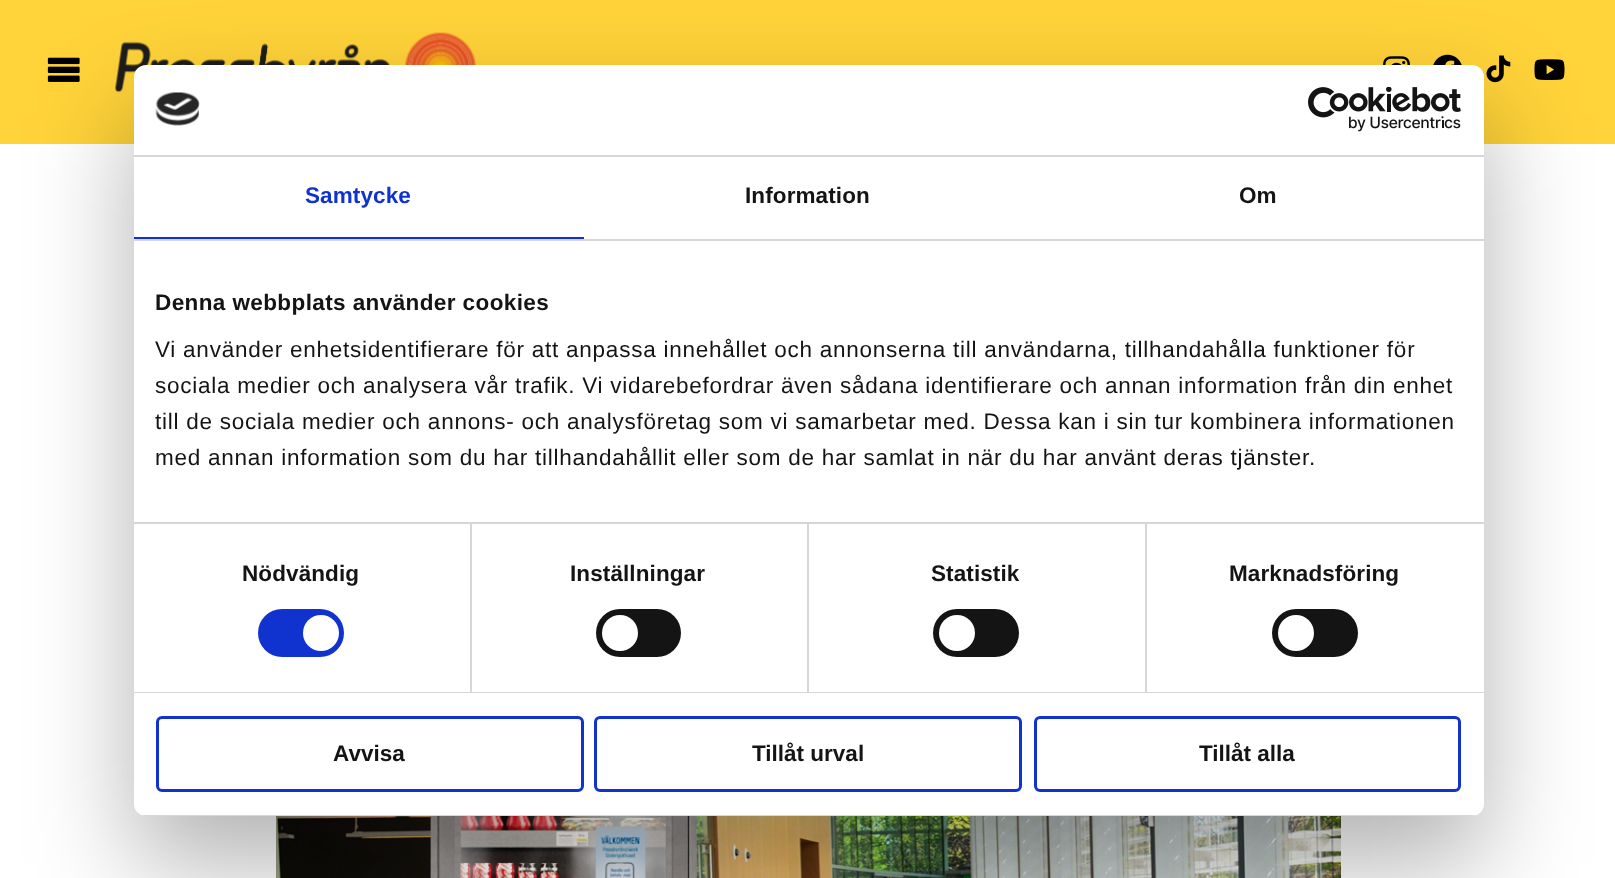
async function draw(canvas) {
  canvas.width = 1615
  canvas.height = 878
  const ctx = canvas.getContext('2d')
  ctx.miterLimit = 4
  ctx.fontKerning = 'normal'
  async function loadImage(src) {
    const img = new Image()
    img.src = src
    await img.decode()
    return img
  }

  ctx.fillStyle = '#ffd339'
  ctx.fillRect(0, 0, 1615, 878)
  ctx.drawImage(await loadImage('image0.png'), 47, 57, 33, 25)
  ctx.drawImage(await loadImage('image1.png'), 115, 32, 361, 61)
  ctx.drawImage(await loadImage('image2.png'), 1383, 56, 27, 9)
  ctx.drawImage(await loadImage('image3.png'), 1433, 54, 29, 11)
  ctx.drawImage(await loadImage('image4.png'), 1486, 55, 25, 28)
  ctx.drawImage(await loadImage('image5.png'), 1534, 59, 31, 21)
  ctx.fillStyle = '#fff'
  ctx.fillRect(0, 144, 1615, 734)
  ctx.drawImage(await loadImage('image6.png'), 276, 816, 1065, 62)
  ctx.fillStyle = '#0000004d'
  ctx.filter = 'blur(51px)'
  ctx.beginPath()
  ctx.roundRect(134, 113, 1350, 751, 12)
  ctx.fill()
  ctx.filter = 'none'
  ctx.fillStyle = '#fff'
  ctx.beginPath()
  ctx.roundRect(134, 65, 1350, 751, 12)
  ctx.fill()
  ctx.fillStyle = '#d6d6d6'
  ctx.fillRect(134, 155, 1350, 2)
  ctx.drawImage(await loadImage('image7.png'), 155, 92, 45, 34)
  ctx.drawImage(await loadImage('image8.png'), 1308, 87, 153, 45)
  ctx.fillRect(134, 239, 1350, 2)
  ctx.fillStyle = '#1032cf'
  ctx.fillRect(134, 237, 450, 2)
  ctx.letterSpacing = '0.1px'
  ctx.font = 'bold 22.5px Liberation Sans'
  ctx.fillText('Samtycke', 305, 203)
  ctx.fillStyle = '#141414'
  ctx.fillText('Information', 745, 203)
  ctx.fillText('Om', 1239, 203)
  ctx.fillStyle = '#d6d6d6'
  ctx.fillRect(134, 522, 1350, 2)
  ctx.letterSpacing = '0.4px'
  ctx.fillStyle = '#141414'
  ctx.fillText('Denna webbplats använder cookies', 155, 310)
  ctx.letterSpacing = '0.75px'
  ctx.font = '22.5px Liberation Sans'
  ctx.fillText('Vi använder enhetsidentifierare för att anpassa innehållet och annonserna till användarna, tillhandahålla funktioner för', 155, 357)
  ctx.fillText('sociala medier och analysera vår trafik. Vi vidarebefordrar även sådana identifierare och annan information från din enhet', 155, 393)
  ctx.fillText('till de sociala medier och annons- och analysföretag som vi samarbetar med. Dessa kan i sin tur kombinera informationen', 155, 429)
  ctx.fillText('med annan information som du har tillhandahållit eller som de har samlat in när du har använt deras tjänster.', 155, 465)
  ctx.fillStyle = '#d6d6d6'
  ctx.fillRect(134, 692, 1350, 1)
  ctx.fillRect(470, 524, 2, 168)
  ctx.letterSpacing = '0.1px'
  ctx.font = 'bold 22.5px Liberation Sans'
  ctx.fillStyle = '#141414'
  ctx.fillText('Nödvändig', 242, 581)
  ctx.fillStyle = '#1032cf'
  ctx.beginPath()
  ctx.roundRect(258, 609, 86, 48, 24)
  ctx.fill()
  ctx.fillStyle = '#fff'
  ctx.beginPath()
  ctx.arc(321, 633, 18, 0, 2 * Math.PI)
  ctx.fill()
  ctx.fillStyle = '#d6d6d6'
  ctx.fillRect(807, 524, 2, 168)
  ctx.fillStyle = '#141414'
  ctx.fillText('Inställningar', 570, 581)
  ctx.beginPath()
  ctx.roundRect(596, 609, 85, 48, 24)
  ctx.fill()
  ctx.fillStyle = '#fff'
  ctx.beginPath()
  ctx.arc(620, 633, 18, 0, 2 * Math.PI)
  ctx.fill()
  ctx.fillStyle = '#d6d6d6'
  ctx.fillRect(1145, 524, 2, 168)
  ctx.fillStyle = '#141414'
  ctx.fillText('Statistik', 931, 581)
  ctx.beginPath()
  ctx.roundRect(933, 609, 86, 48, 24)
  ctx.fill()
  ctx.fillStyle = '#fff'
  ctx.beginPath()
  ctx.arc(957, 633, 18, 0, 2 * Math.PI)
  ctx.fill()
  ctx.fillStyle = '#141414'
  ctx.fillText('Marknadsföring', 1229, 581)
  ctx.beginPath()
  ctx.roundRect(1272, 609, 86, 48, 24)
  ctx.fill()
  ctx.fillStyle = '#fff'
  ctx.beginPath()
  ctx.arc(1296, 633, 18, 0, 2 * Math.PI)
  ctx.fill()
  ctx.save()
  ctx.beginPath()
  ctx.roundRect(134, 65, 1350, 751, 12)
  ctx.clip()
  ctx.fillStyle = '#d6d6d6'
  ctx.fillRect(134, 815, 1350, 1)
  ctx.restore()
  ctx.beginPath()
  ctx.roundRect(157.5, 717.5, 425, 73, 4.5)
  ctx.strokeStyle = '#1032cf'
  ctx.lineWidth = 3
  ctx.stroke()
  ctx.letterSpacing = '0px'
  ctx.fillStyle = '#141414'
  ctx.fillText('Avvisa', 333, 761)
  ctx.beginPath()
  ctx.roundRect(595.5, 717.5, 425, 73, 4.5)
  ctx.stroke()
  ctx.fillText('Tillåt urval', 752, 761)
  ctx.beginPath()
  ctx.roundRect(1035.5, 717.5, 424, 73, 4.5)
  ctx.stroke()
  ctx.fillText('Tillåt alla', 1199, 761)
}

draw(document.querySelector('canvas'))
